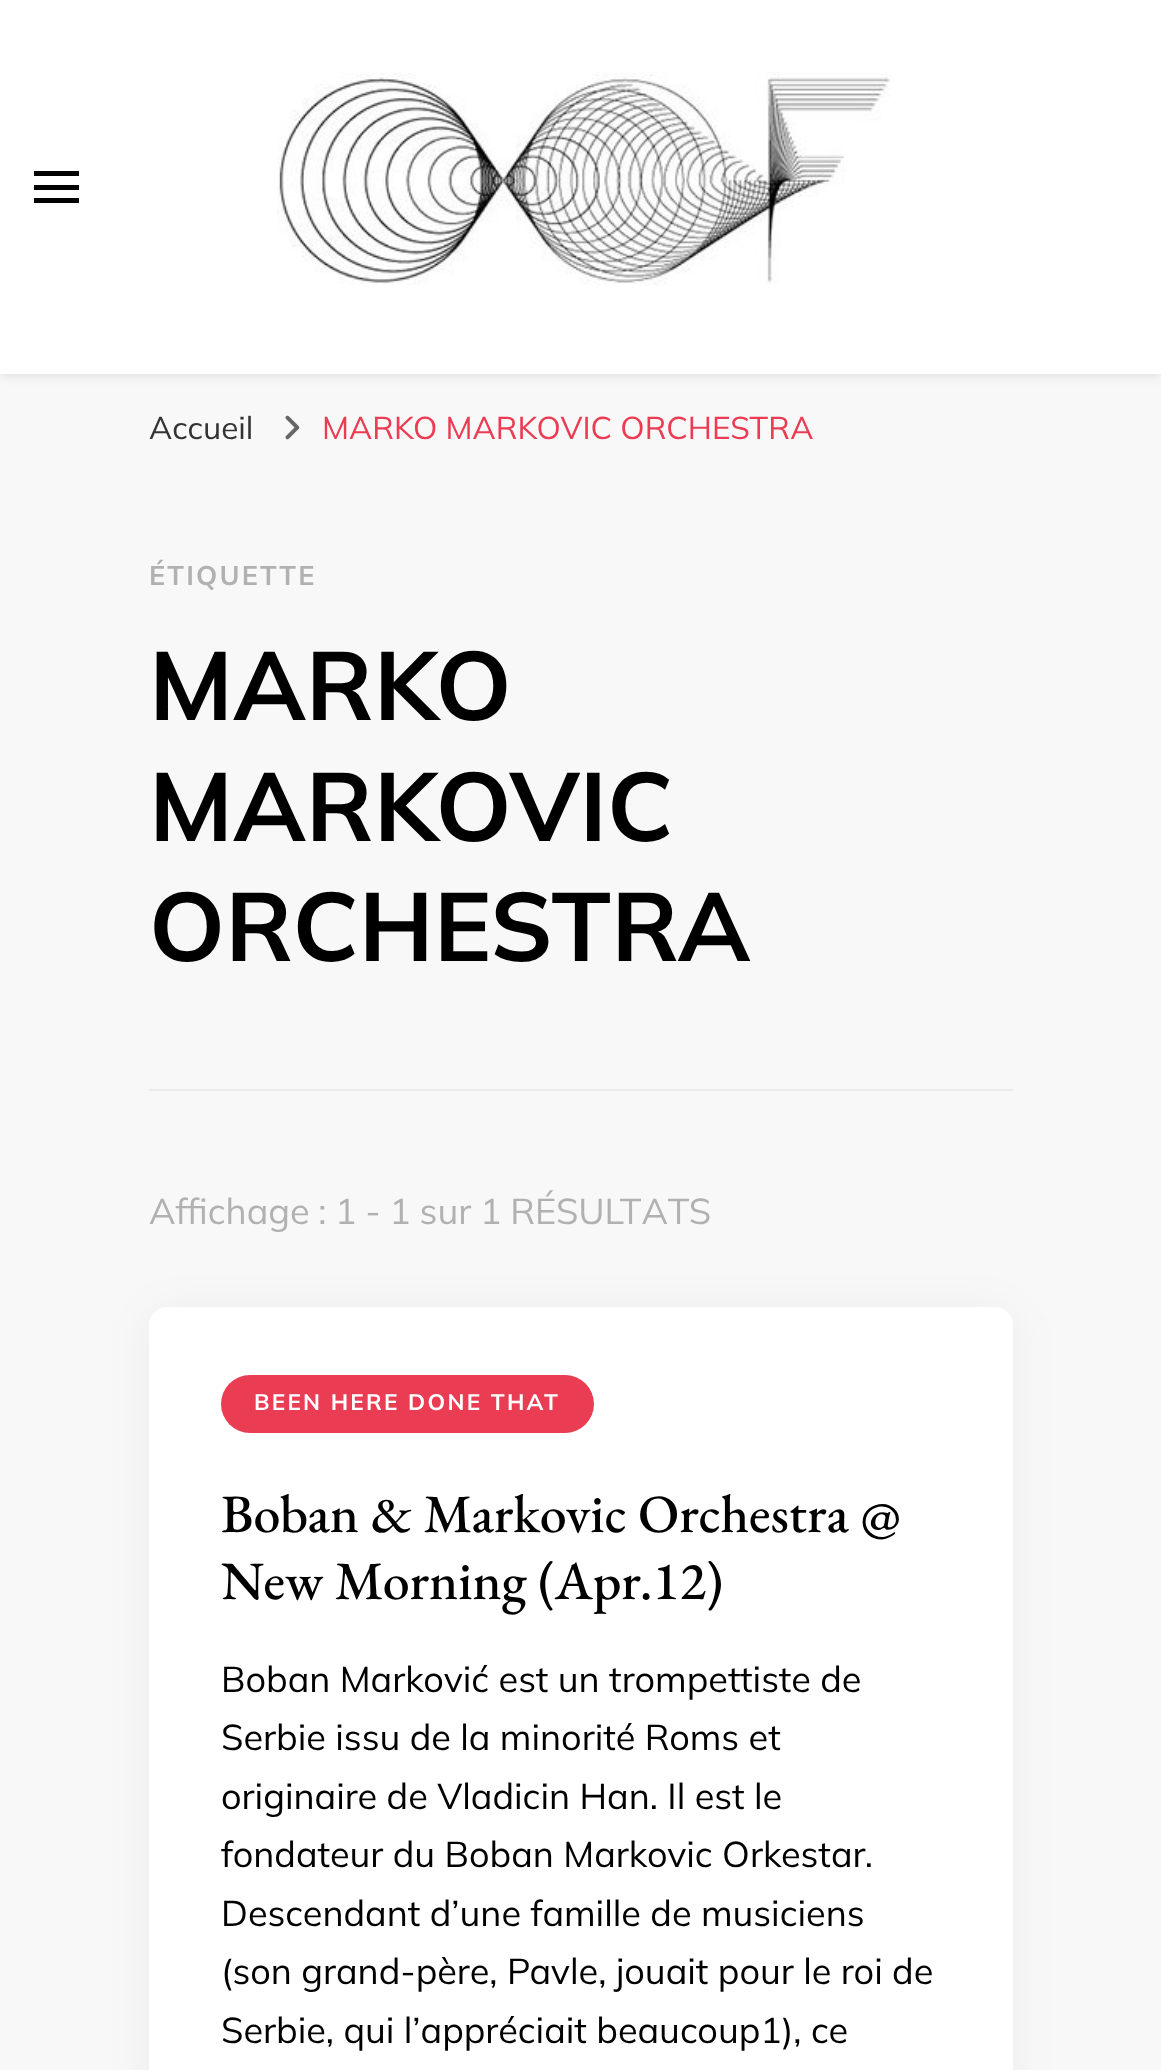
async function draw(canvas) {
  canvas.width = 1161
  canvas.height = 2070
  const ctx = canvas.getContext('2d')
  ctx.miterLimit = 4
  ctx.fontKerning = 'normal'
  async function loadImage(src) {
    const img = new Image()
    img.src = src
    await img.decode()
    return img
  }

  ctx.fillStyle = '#f8f8f8'
  ctx.fillRect(0, 0, 1161, 2070)
  ctx.fillStyle = '#0000001a'
  ctx.filter = 'blur(5.5px)'
  ctx.beginPath()
  ctx.rect(0, 2, 1161, 374)
  ctx.fill()
  ctx.filter = 'none'
  ctx.fillStyle = '#fff'
  ctx.fillRect(0, 0, 1161, 374)
  ctx.fillStyle = '#000'
  ctx.fillRect(34, 171, 45, 5)
  ctx.fillRect(34, 185, 45, 5)
  ctx.fillRect(34, 198, 45, 5)
  ctx.drawImage(await loadImage('image0.png'), 277, 72, 614, 214)
  ctx.font = '31.5px Mulish'
  ctx.fillStyle = '#333'
  ctx.fillText('Accueil', 149, 439)
  ctx.drawImage(await loadImage('image1.png'), 285, 415, 15, 25)
  ctx.fillStyle = '#ea3c53'
  ctx.fillText('MARKO MARKOVIC ORCHESTRA', 322, 439)
  ctx.fillStyle = '#ebebeb'
  ctx.fillRect(149, 1089, 864, 2)
  ctx.letterSpacing = '2.25px'
  ctx.font = 'bold 27px Mulish'
  ctx.fillStyle = '#b1b1b2'
  ctx.fillText('ÉTIQUETTE', 149, 585)
  ctx.letterSpacing = '0px'
  ctx.font = 'bold 96.75px Mulish'
  ctx.fillStyle = '#000'
  ctx.fillText('MARKO', 149, 720)
  ctx.fillText('MARKOVIC', 149, 841)
  ctx.fillText('ORCHESTRA', 149, 961)
  ctx.wordSpacing = '-0.75px'
  ctx.font = '36px Mulish'
  ctx.fillStyle = '#b1b1b2'
  ctx.fillText('Affichage : 1 - 1 sur 1 RÉSULTATS', 149, 1224)
  ctx.fillStyle = '#0000000d'
  ctx.filter = 'blur(22.5px)'
  ctx.beginPath()
  ctx.roundRect(149, 1312, 864, 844, 18)
  ctx.fill()
  ctx.filter = 'none'
  ctx.fillStyle = '#fff'
  ctx.beginPath()
  ctx.roundRect(149, 1307, 864, 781, 18)
  ctx.fill()
  ctx.fillStyle = '#ea3c53'
  ctx.beginPath()
  ctx.roundRect(221, 1375, 373, 58, 29)
  ctx.fill()
  ctx.letterSpacing = '2.25px'
  ctx.wordSpacing = '0px'
  ctx.font = 'bold 22.5px Mulish'
  ctx.fillStyle = '#fff'
  ctx.fillText('BEEN HERE DONE THAT', 254, 1410)
  ctx.letterSpacing = '0px'
  ctx.font = '500 54px EB Garamond'
  ctx.fillStyle = '#000'
  ctx.fillText('Boban & Markovic Orchestra @', 221, 1532)
  ctx.fillText('New Morning (Apr.12)', 221, 1599)
  ctx.font = '36px Mulish'
  ctx.fillText('Boban Marković est un trompettiste de', 221, 1692)
  ctx.fillText('Serbie issu de la minorité Roms et', 221, 1750)
  ctx.fillText('originaire de Vladicin Han. Il est le', 221, 1809)
  ctx.fillText('fondateur du Boban Markovic Orkestar.', 221, 1867)
  ctx.fillText('Descendant d’une famille de musiciens', 221, 1926)
  ctx.fillText('(son grand-père, Pavle, jouait pour le roi de', 221, 1984)
  ctx.fillText('Serbie, qui l’appréciait beaucoup1), ce', 221, 2043)
}

draw(document.querySelector('canvas'))
